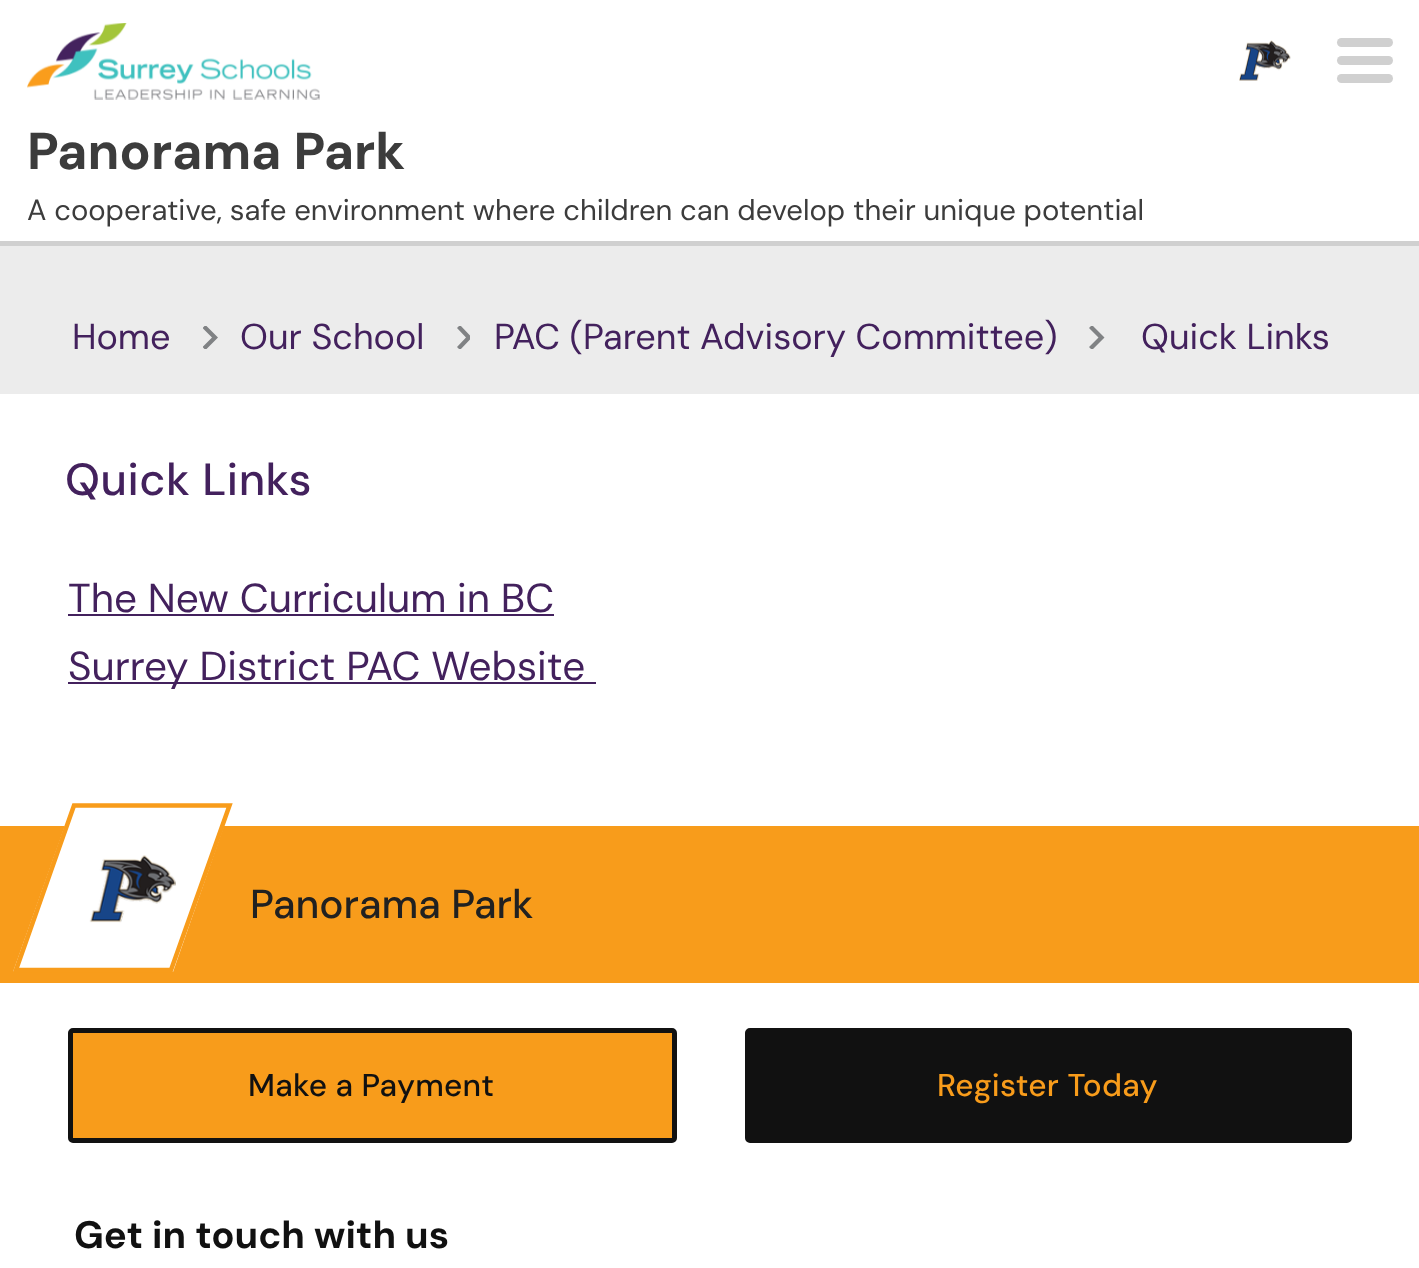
async function draw(canvas) {
  canvas.width = 1419
  canvas.height = 1268
  const ctx = canvas.getContext('2d')
  ctx.miterLimit = 4
  ctx.fontKerning = 'normal'
  async function loadImage(src) {
    const img = new Image()
    img.src = src
    await img.decode()
    return img
  }

  ctx.fillStyle = '#fff'
  ctx.fillRect(0, 0, 1419, 1268)
  ctx.drawImage(await loadImage('image0.png'), 27, 23, 293, 77)
  ctx.drawImage(await loadImage('image1.png'), 1239, 40, 52, 41)
  ctx.fillStyle = '#d0d0d0'
  ctx.beginPath()
  ctx.roundRect(1337, 38, 56, 9, 4.5)
  ctx.fill()
  ctx.beginPath()
  ctx.roundRect(1337, 56, 56, 9, 4.5)
  ctx.fill()
  ctx.beginPath()
  ctx.roundRect(1337, 74, 56, 9, 4.5)
  ctx.fill()
  ctx.font = 'bold 51.75px DM Sans'
  ctx.fillStyle = '#3c3c3c'
  ctx.fillText('Panorama Park', 27, 169)
  ctx.font = '29.25px DM Sans'
  ctx.fillText('A cooperative, safe environment where children can develop their unique potential', 27, 220)
  ctx.fillStyle = '#d0d0d0'
  ctx.fillRect(0, 241, 1419, 5)
  ctx.fillStyle = '#ececec'
  ctx.fillRect(0, 246, 1419, 148)
  ctx.font = '36px DM Sans'
  ctx.fillStyle = '#43215d'
  ctx.fillText('Home', 72, 349)
  ctx.save()
  ctx.beginPath()
  ctx.rect(203, 326, 15, 23)
  ctx.clip()
  ctx.fillStyle = '#808284'
  ctx.beginPath()
  ctx.moveTo(205.5, 325)
  ctx.lineTo(202.5, 328)
  ctx.lineTo(212, 337.5)
  ctx.lineTo(202.5, 347)
  ctx.lineTo(205.5, 350)
  ctx.lineTo(218, 337.5)
  ctx.closePath()
  ctx.fill()
  ctx.restore()
  ctx.fillText('Our School', 240, 349)
  ctx.save()
  ctx.beginPath()
  ctx.rect(457, 326, 13, 23)
  ctx.clip()
  ctx.fillStyle = '#808284'
  ctx.beginPath()
  ctx.moveTo(460, 325)
  ctx.lineTo(457, 328)
  ctx.lineTo(466, 337.5)
  ctx.lineTo(457, 347)
  ctx.lineTo(460, 350)
  ctx.lineTo(472, 337.5)
  ctx.closePath()
  ctx.fill()
  ctx.restore()
  ctx.fillText('PAC (Parent Advisory Committee)', 494, 349)
  ctx.save()
  ctx.beginPath()
  ctx.rect(1089, 326, 16, 23)
  ctx.clip()
  ctx.fillStyle = '#808284'
  ctx.beginPath()
  ctx.moveTo(1092, 325)
  ctx.lineTo(1089, 328)
  ctx.lineTo(1098.5, 337.5)
  ctx.lineTo(1089, 347)
  ctx.lineTo(1092, 350)
  ctx.lineTo(1104.5, 337.5)
  ctx.closePath()
  ctx.fill()
  ctx.restore()
  ctx.fillText('Quick Links', 1141, 349)
  ctx.letterSpacing = '0.5px'
  ctx.font = '500 45px DM Sans'
  ctx.fillText('Quick Links', 65, 495)
  ctx.letterSpacing = '0px'
  ctx.font = '40.5px DM Sans'
  ctx.fillText('The New Curriculum in BC', 68, 612)
  ctx.fillRect(68, 614, 486, 2)
  ctx.fillRect(68, 682, 528, 2)
  ctx.fillText('Surrey District PAC Website', 68, 680)
  ctx.fillStyle = '#f89c1b'
  ctx.fillRect(0, 826, 1419, 157)
  ctx.fillStyle = '#fff'
  ctx.beginPath()
  ctx.moveTo(73, 803)
  ctx.lineTo(232, 803)
  ctx.lineTo(173, 972)
  ctx.lineTo(13, 972)
  ctx.closePath()
  ctx.fill()
  ctx.beginPath()
  ctx.moveTo(74, 805.5)
  ctx.lineTo(229.5, 805.5)
  ctx.lineTo(171, 970)
  ctx.lineTo(16, 970)
  ctx.closePath()
  ctx.strokeStyle = '#f89c1b'
  ctx.lineWidth = 4.5
  ctx.stroke()
  ctx.drawImage(await loadImage('image2.png'), 89, 855, 87, 68)
  ctx.font = '500 40.5px DM Sans'
  ctx.fillStyle = '#212121'
  ctx.fillText('Panorama Park', 250, 918)
  ctx.fillStyle = '#f89c1b'
  ctx.beginPath()
  ctx.roundRect(70.5, 1030.5, 604, 110, 2.5)
  ctx.fill()
  ctx.strokeStyle = '#111'
  ctx.lineWidth = 5
  ctx.stroke()
  ctx.letterSpacing = '0.25px'
  ctx.font = '500 31.5px DM Sans'
  ctx.fillStyle = '#111'
  ctx.fillText('Make a Payment', 248, 1096)
  ctx.beginPath()
  ctx.roundRect(747.5, 1030.5, 602, 110, 2.5)
  ctx.fill()
  ctx.stroke()
  ctx.fillStyle = '#f89c1b'
  ctx.fillText('Register Today', 937, 1096)
  ctx.letterSpacing = '0px'
  ctx.font = 'bold 38.25px DM Sans'
  ctx.fillStyle = '#111'
  ctx.fillText('Get in touch with us', 74, 1248)
}

draw(document.querySelector('canvas'))
